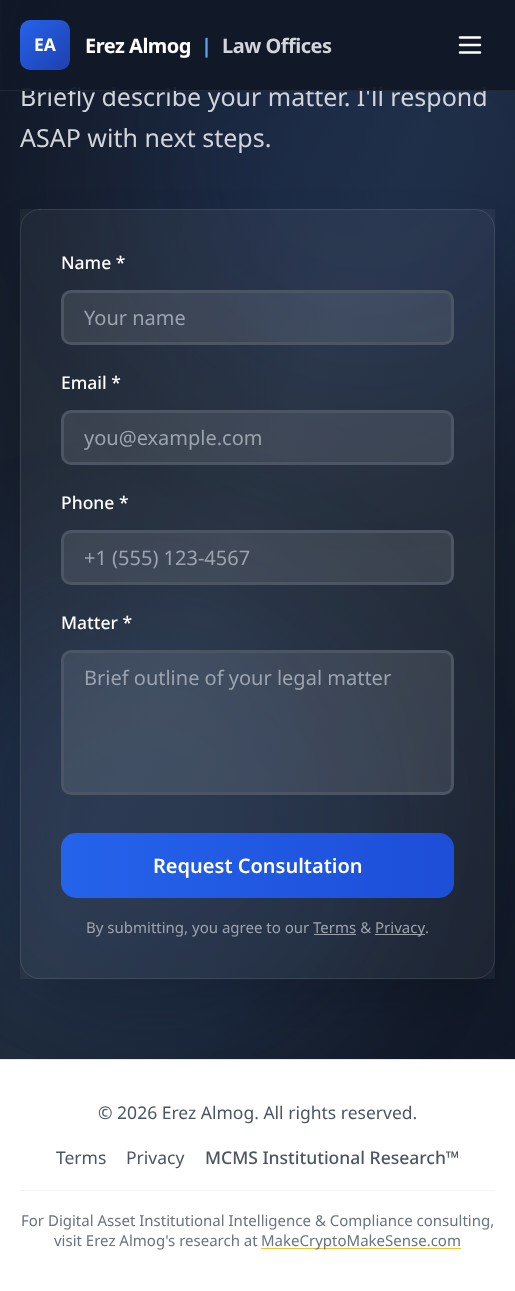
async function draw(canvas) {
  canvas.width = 515
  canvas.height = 1291
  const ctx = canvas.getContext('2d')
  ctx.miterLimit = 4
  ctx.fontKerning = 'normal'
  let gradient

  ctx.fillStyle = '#fff'
  ctx.fillRect(0, 0, 515, 1291)
  gradient = ctx.createLinearGradient(-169, 299, 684, 687)
  gradient.addColorStop(0, '#111827')
  gradient.addColorStop(0.5, '#1f2937')
  gradient.addColorStop(1, '#111827')
  ctx.fillStyle = gradient
  ctx.fillRect(0, 0, 515, 1059)
  ctx.fillStyle = '#2563eb1a'
  ctx.filter = 'blur(80px)'
  ctx.beginPath()
  ctx.roundRect(129, -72, 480, 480, 240)
  ctx.fill()
  ctx.filter = 'none'
  ctx.font = '25px Noto Sans'
  ctx.fillStyle = '#d1d5db'
  ctx.fillText('Briefly describe your matter. I\'ll respond', 20, 106)
  ctx.fillStyle = '#111827f2'
  ctx.fillRect(2, 0, 513, 90)
  ctx.fillStyle = '#1f2937'
  ctx.fillRect(0, 90, 515, 1)
  gradient = ctx.createLinearGradient(20, 20, 70, 70)
  gradient.addColorStop(0, '#2563eb')
  gradient.addColorStop(1, '#1e40af')
  ctx.fillStyle = gradient
  ctx.beginPath()
  ctx.roundRect(20, 20, 50, 50, 10)
  ctx.fill()
  ctx.font = 'bold 17.5px Noto Sans'
  ctx.fillStyle = '#fff'
  ctx.fillText('EA', 34, 51)
  ctx.letterSpacing = '-0.5px'
  ctx.font = 'bold 20px Noto Sans'
  ctx.fillText('Erez Almog', 85, 53)
  ctx.fillStyle = '#60a5fa'
  ctx.fillText('|', 201, 53)
  ctx.fillStyle = '#d1d5db'
  ctx.fillText('Law Offices', 222, 53)
  ctx.beginPath()
  ctx.moveTo(460, 37.5)
  ctx.lineTo(480, 37.5)
  ctx.moveTo(460, 45)
  ctx.lineTo(480, 45)
  ctx.moveTo(460, 52.5)
  ctx.lineTo(480, 52.5)
  ctx.strokeStyle = '#fff'
  ctx.lineWidth = 2.5
  ctx.lineCap = 'round'
  ctx.lineJoin = 'round'
  ctx.stroke()
  ctx.letterSpacing = '0px'
  ctx.font = '25px Noto Sans'
  ctx.fillText('ASAP with next steps.', 20, 147)
  ctx.fillStyle = '#e5e7eb'
  ctx.fillRect(0, 1059, 515, 1)
  ctx.save()
  ctx.beginPath()
  ctx.moveTo(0, 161)
  ctx.lineTo(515, 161)
  ctx.lineTo(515, 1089)
  ctx.lineTo(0, 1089)
  ctx.closePath()
  ctx.moveTo(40, 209)
  ctx.lineTo(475, 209)
  ctx.bezierCurveTo(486, 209, 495, 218, 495, 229)
  ctx.lineTo(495, 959)
  ctx.bezierCurveTo(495, 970, 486, 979, 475, 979)
  ctx.lineTo(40, 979)
  ctx.bezierCurveTo(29, 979, 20, 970, 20, 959)
  ctx.lineTo(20, 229)
  ctx.bezierCurveTo(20, 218, 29, 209, 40, 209)
  ctx.closePath()
  ctx.clip('evenodd')
  ctx.fillStyle = '#00000040'
  ctx.filter = 'blur(31px)'
  ctx.beginPath()
  ctx.roundRect(35, 255, 445, 740, 5)
  ctx.fill()
  ctx.filter = 'none'
  ctx.restore()
  ctx.fillStyle = '#f3f4f6'
  ctx.fillRect(20, 1190, 475, 1)
  ctx.fillStyle = '#f4c430'
  ctx.fillRect(261, 1248, 200, 1)
  ctx.save()
  ctx.beginPath()
  ctx.rect(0, 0, 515, 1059)
  ctx.clip()
  ctx.fillStyle = '#3b82f61a'
  ctx.filter = 'blur(80px)'
  ctx.beginPath()
  ctx.roundRect(-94, 579, 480, 480, 240)
  ctx.fill()
  ctx.filter = 'none'
  ctx.restore()
  ctx.fillStyle = '#ffffff0d'
  ctx.fillRect(20, 209, 475, 770)
  ctx.beginPath()
  ctx.roundRect(20.5, 209.5, 474, 769, 19.5)
  ctx.strokeStyle = '#ffffff1a'
  ctx.lineWidth = 1
  ctx.lineJoin = 'miter'
  ctx.stroke()
  ctx.font = '500 17.5px Noto Sans'
  ctx.fillStyle = '#fff'
  ctx.fillText('Name *', 61, 269)
  ctx.fillStyle = '#ffffff1a'
  ctx.beginPath()
  ctx.roundRect(62.5, 291.5, 390, 52, 8.5)
  ctx.fill()
  ctx.strokeStyle = '#4b5563'
  ctx.lineWidth = 3
  ctx.stroke()
  ctx.font = '20px Noto Sans'
  ctx.fillStyle = '#9ca3af'
  ctx.fillText('Your name', 84, 325)
  ctx.font = '500 17.5px Noto Sans'
  ctx.fillStyle = '#fff'
  ctx.fillText('Email *', 61, 389)
  ctx.fillStyle = '#ffffff1a'
  ctx.beginPath()
  ctx.roundRect(62.5, 411.5, 390, 52, 8.5)
  ctx.fill()
  ctx.stroke()
  ctx.font = '20px Noto Sans'
  ctx.fillStyle = '#9ca3af'
  ctx.fillText('you@example.com', 84, 445)
  ctx.font = '500 17.5px Noto Sans'
  ctx.fillStyle = '#fff'
  ctx.fillText('Phone *', 61, 509)
  ctx.fillStyle = '#ffffff1a'
  ctx.beginPath()
  ctx.roundRect(62.5, 531.5, 390, 52, 8.5)
  ctx.fill()
  ctx.stroke()
  ctx.font = '20px Noto Sans'
  ctx.fillStyle = '#9ca3af'
  ctx.fillText('+1 (555) 123-4567', 84, 565)
  ctx.font = '500 17.5px Noto Sans'
  ctx.fillStyle = '#fff'
  ctx.fillText('Matter *', 61, 629)
  ctx.fillStyle = '#ffffff1a'
  ctx.beginPath()
  ctx.roundRect(62.5, 651.5, 390, 142, 8.5)
  ctx.fill()
  ctx.stroke()
  ctx.font = '20px Noto Sans'
  ctx.fillStyle = '#9ca3af'
  ctx.fillText('Brief outline of your legal matter', 84, 685)
  gradient = ctx.createLinearGradient(61, 865, 454, 865)
  gradient.addColorStop(0, '#2563eb')
  gradient.addColorStop(1, '#1d4ed8')
  ctx.fillStyle = gradient
  ctx.beginPath()
  ctx.roundRect(61, 833, 393, 65, 15)
  ctx.fill()
  ctx.font = '600 20px Noto Sans'
  ctx.fillStyle = '#fff'
  ctx.fillText('Request Consultation', 153, 873)
  ctx.font = '15px Noto Sans'
  ctx.fillStyle = '#9ca3af'
  ctx.fillText('By submitting, you agree to our Terms &', 86, 933)
  ctx.fillRect(375, 934, 50, 1)
  ctx.fillText('Privacy', 375, 933)
  ctx.fillText('.', 425, 933)
  ctx.fillRect(314, 934, 42, 1)
  ctx.font = '17.5px Noto Sans'
  ctx.fillStyle = '#4b5563'
  ctx.fillText('© 2026 Erez Almog. All rights reserved.', 98, 1119)
  ctx.fillText('Terms', 56, 1164)
  ctx.fillText('Privacy', 126, 1164)
  ctx.font = '500 17.5px Noto Sans'
  ctx.fillText('MCMS Institutional Research™', 205, 1164)
  ctx.font = '15px Noto Sans'
  ctx.fillStyle = '#6b7280'
  ctx.fillText('For Digital Asset Institutional Intelligence & Compliance consulting,', 21, 1226)
  ctx.fillText('visit Erez Almog\'s research at', 54, 1246)
  ctx.fillText('MakeCryptoMakeSense.com', 261, 1246)
}

draw(document.querySelector('canvas'))
